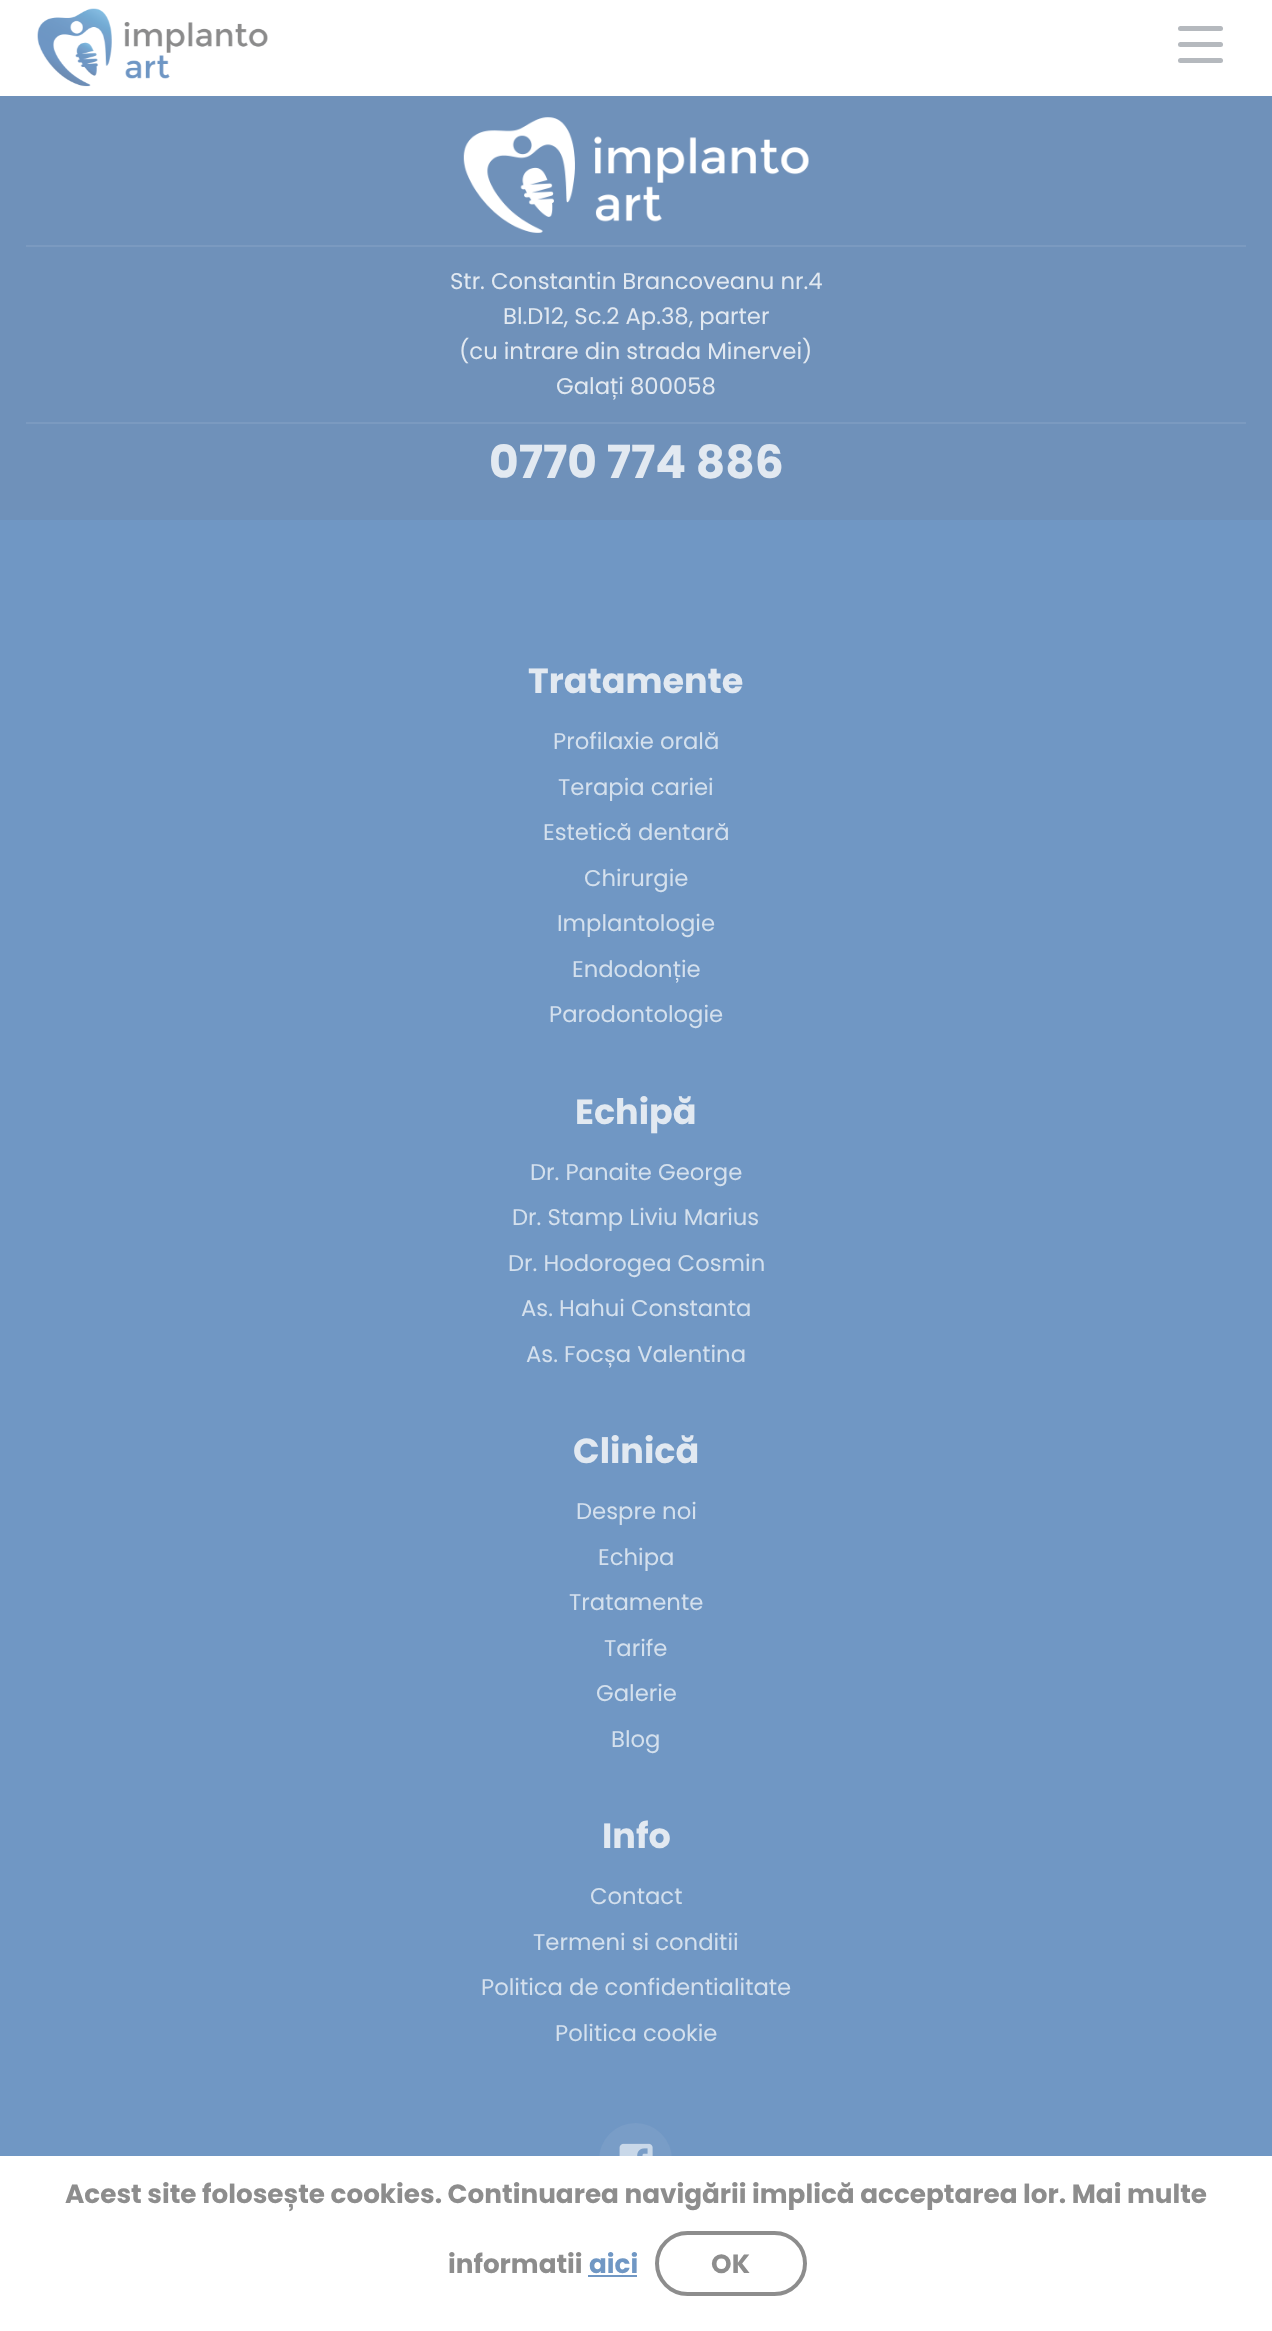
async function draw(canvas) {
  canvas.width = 1272
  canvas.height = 2331
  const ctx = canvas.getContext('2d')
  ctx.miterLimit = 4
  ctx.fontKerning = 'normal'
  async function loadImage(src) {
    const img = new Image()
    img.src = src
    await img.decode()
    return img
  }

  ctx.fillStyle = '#fff'
  ctx.fillRect(0, 0, 1272, 2331)
  ctx.drawImage(await loadImage('image0.png'), 37, 8, 231, 79)
  ctx.fillStyle = '#b5b9be'
  ctx.beginPath()
  ctx.roundRect(1178, 26, 45, 5, 2.5)
  ctx.fill()
  ctx.beginPath()
  ctx.roundRect(1178, 42, 45, 5, 2.5)
  ctx.fill()
  ctx.beginPath()
  ctx.roundRect(1178, 58, 45, 5, 2.5)
  ctx.fill()
  ctx.fillStyle = '#7097c4'
  ctx.fillRect(0, 520, 1272, 1636)
  ctx.fillStyle = '#6f91ba'
  ctx.fillRect(0, 96, 1272, 424)
  ctx.drawImage(await loadImage('image1.png'), 463, 117, 346, 116)
  ctx.fillStyle = '#7b9ac0'
  ctx.fillRect(26, 245, 1220, 2)
  ctx.fillRect(26, 422, 1220, 2)
  ctx.font = '22.75px Poppins'
  ctx.fillStyle = '#e2e9f1'
  ctx.fillText('Str. Constantin Brancoveanu nr.4', 450, 289)
  ctx.fillText('Bl.D12, Sc.2 Ap.38, parter', 503, 324)
  ctx.fillText('(cu intrare din strada Minervei)', 459, 359)
  ctx.fillText('Galați 800058', 556, 394)
  ctx.font = 'bold 45.5px Poppins'
  ctx.fillText('0770 774 886', 489, 478)
  ctx.font = 'bold 35px Poppins'
  ctx.fillText('Tratamente', 528, 693)
  ctx.font = '22.75px Poppins'
  ctx.fillStyle = '#d4e0ed'
  ctx.fillText('Profilaxie orală', 553, 749)
  ctx.fillText('Terapia cariei', 558, 795)
  ctx.fillText('Estetică dentară', 543, 840)
  ctx.fillText('Chirurgie', 584, 886)
  ctx.fillText('Implantologie', 557, 931)
  ctx.fillText('Endodonție', 572, 977)
  ctx.fillText('Parodontologie', 549, 1022)
  ctx.font = 'bold 35px Poppins'
  ctx.fillStyle = '#e2e9f1'
  ctx.fillText('Echipă', 575, 1124)
  ctx.font = '22.75px Poppins'
  ctx.fillStyle = '#d4e0ed'
  ctx.fillText('Dr. Panaite George', 530, 1180)
  ctx.fillText('Dr. Stamp Liviu Marius', 512, 1225)
  ctx.fillText('Dr. Hodorogea Cosmin', 508, 1271)
  ctx.fillText('As. Hahui Constanta', 521, 1316)
  ctx.fillText('As. Focșa Valentina', 526, 1362)
  ctx.font = 'bold 35px Poppins'
  ctx.fillStyle = '#e2e9f1'
  ctx.fillText('Clinică', 573, 1463)
  ctx.font = '22.75px Poppins'
  ctx.fillStyle = '#d4e0ed'
  ctx.fillText('Despre noi', 576, 1519)
  ctx.fillText('Echipa', 598, 1565)
  ctx.fillText('Tratamente', 569, 1610)
  ctx.fillText('Tarife', 604, 1656)
  ctx.fillText('Galerie', 596, 1701)
  ctx.fillText('Blog', 611, 1747)
  ctx.font = 'bold 35px Poppins'
  ctx.fillStyle = '#e2e9f1'
  ctx.fillText('Info', 602, 1848)
  ctx.font = '22.75px Poppins'
  ctx.fillStyle = '#d4e0ed'
  ctx.fillText('Contact', 590, 1904)
  ctx.fillText('Termeni si conditii', 533, 1950)
  ctx.fillText('Politica de confidentialitate', 481, 1995)
  ctx.fillText('Politica cookie', 555, 2041)
  ctx.fillStyle = '#799dc7'
  ctx.beginPath()
  ctx.arc(635.5, 2159.5, 36.5, 0, 2 * Math.PI)
  ctx.fill()
  ctx.drawImage(await loadImage('image2.png'), 619, 2143, 34, 13)
  ctx.fillStyle = '#fff'
  ctx.fillRect(599, 2156, 73, 40)
  ctx.font = 'bold 26.25px Poppins'
  ctx.fillStyle = '#8d8d8d'
  ctx.fillText('Acest site folosește cookies. Continuarea navigării implică acceptarea lor. Mai multe', 65, 2203)
  ctx.fillText('informatii', 448, 2273)
  ctx.fillStyle = '#7097c4'
  ctx.fillText('aici', 589, 2273)
  ctx.fillRect(588, 2275, 49, 2)
  ctx.beginPath()
  ctx.roundRect(657, 2233, 148, 61, 30.5)
  ctx.strokeStyle = '#8d8d8d'
  ctx.lineWidth = 4
  ctx.stroke()
  ctx.fillStyle = '#8d8d8d'
  ctx.fillText('OK', 711, 2273)
}

draw(document.querySelector('canvas'))
